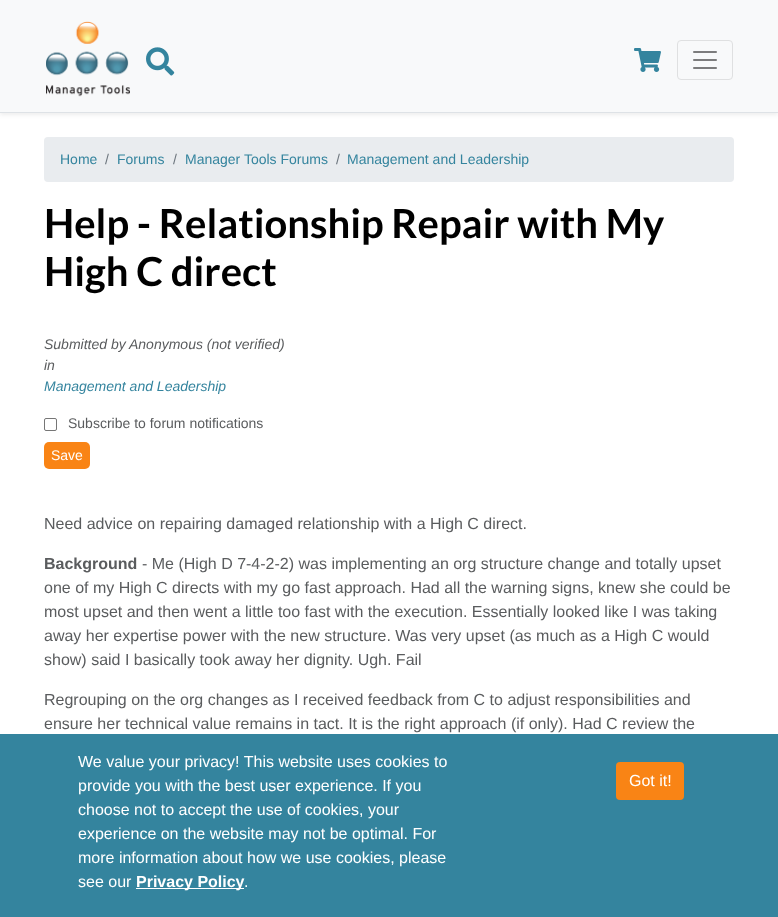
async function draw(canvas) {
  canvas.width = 778
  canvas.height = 917
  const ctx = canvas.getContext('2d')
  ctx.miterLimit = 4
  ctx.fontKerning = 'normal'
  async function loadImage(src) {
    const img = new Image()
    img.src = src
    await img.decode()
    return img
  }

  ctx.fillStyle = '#fff'
  ctx.fillRect(0, 0, 778, 917)
  ctx.fillStyle = '#00000012'
  ctx.filter = 'blur(2px)'
  ctx.beginPath()
  ctx.rect(0, 2, 778, 113)
  ctx.fill()
  ctx.filter = 'none'
  ctx.fillStyle = '#f8f9fa'
  ctx.fillRect(0, 0, 778, 112)
  ctx.fillStyle = '#dee2e6'
  ctx.fillRect(0, 112, 778, 1)
  ctx.drawImage(await loadImage('image0.png'), 46, 21, 84, 76)
  ctx.drawImage(await loadImage('image1.png'), 146, 47, 29, 29)
  ctx.drawImage(await loadImage('image2.png'), 634, 48, 27, 24)
  ctx.beginPath()
  ctx.roundRect(677.5, 40.5, 55, 39, 3.5)
  ctx.strokeStyle = '#dfe0e1'
  ctx.stroke()
  ctx.drawImage(await loadImage('image3.png'), 693, 51, 24, 18)
  ctx.fillStyle = '#e9ecef'
  ctx.beginPath()
  ctx.roundRect(44, 137, 690, 45, 4)
  ctx.fill()
  ctx.font = '14px Liberation Sans'
  ctx.fillStyle = '#34849e'
  ctx.fillText('Home', 60, 164)
  ctx.fillStyle = '#6c757d'
  ctx.fillText('/', 105, 164)
  ctx.fillStyle = '#34849e'
  ctx.fillText('Forums', 117, 164)
  ctx.fillStyle = '#6c757d'
  ctx.fillText('/', 173, 164)
  ctx.fillStyle = '#34849e'
  ctx.fillText('Manager Tools Forums', 185, 164)
  ctx.fillStyle = '#6c757d'
  ctx.fillText('/', 336, 164)
  ctx.fillStyle = '#34849e'
  ctx.fillText('Management and Leadership', 347, 164)
  ctx.font = 'bold 40px Lato'
  ctx.fillStyle = '#000'
  ctx.fillText('Help - Relationship Repair with My', 44, 238)
  ctx.fillText('High C direct', 44, 286)
  ctx.font = 'italic 14px Liberation Sans'
  ctx.fillStyle = '#5a5c5e'
  ctx.fillText('Submitted by', 44, 349)
  ctx.fillText('Anonymous (not verified)', 129, 349)
  ctx.fillText('in', 44, 370)
  ctx.fillStyle = '#34849e'
  ctx.fillText('Management and Leadership', 44, 391)
  ctx.beginPath()
  ctx.roundRect(44.5, 418.5, 12, 12, 1.5)
  ctx.strokeStyle = '#767676'
  ctx.stroke()
  ctx.font = '14px Liberation Sans'
  ctx.fillStyle = '#5a5c5e'
  ctx.fillText('Subscribe to forum notifications', 68, 428)
  ctx.fillStyle = '#f98415'
  ctx.beginPath()
  ctx.roundRect(44, 442, 46, 27, 5)
  ctx.fill()
  ctx.fillStyle = '#fff'
  ctx.fillText('Save', 51, 460)
  ctx.font = '16px Liberation Sans'
  ctx.fillStyle = '#5a5c5e'
  ctx.fillText('Need advice on repairing damaged relationship with a High C direct.', 44, 529)
  ctx.font = 'bold 16px Liberation Sans'
  ctx.fillText('Background', 44, 569)
  ctx.font = '16px Liberation Sans'
  ctx.fillText('- Me (High D 7-4-2-2) was implementing an org structure change and totally upset', 142, 569)
  ctx.fillText('one of my High C directs with my go fast approach. Had all the warning signs, knew she could be', 44, 593)
  ctx.fillText('most upset and then went a little too fast with the execution. Essentially looked like I was taking', 44, 617)
  ctx.fillText('away her expertise power with the new structure. Was very upset (as much as a High C would', 44, 641)
  ctx.fillText('show) said I basically took away her dignity. Ugh. Fail', 44, 665)
  ctx.fillText('Regrouping on the org changes as I received feedback from C to adjust responsibilities and', 44, 705)
  ctx.fillText('ensure her technical value remains in tact. It is the right approach (if only). Had C review the', 44, 729)
  ctx.fillStyle = '#34849e'
  ctx.fillRect(0, 734, 778, 183)
  ctx.fillStyle = '#fff'
  ctx.fillText('We value your privacy! This website uses cookies to', 78, 767)
  ctx.fillText('provide you with the best user experience. If you', 78, 791)
  ctx.fillText('choose not to accept the use of cookies, your', 78, 815)
  ctx.fillText('experience on the website may not be optimal. For', 78, 839)
  ctx.fillText('more information about how we use cookies, please', 78, 863)
  ctx.fillText('see our', 78, 887)
  ctx.fillRect(136, 888, 108, 1)
  ctx.font = 'bold 16px Liberation Sans'
  ctx.fillText('Privacy Policy', 136, 887)
  ctx.font = '16px Liberation Sans'
  ctx.fillText('.', 244, 887)
  ctx.fillStyle = '#f98415'
  ctx.beginPath()
  ctx.roundRect(616, 762, 68, 38, 4)
  ctx.fill()
  ctx.fillStyle = '#fff'
  ctx.fillText('Got it!', 629, 786)
}

draw(document.querySelector('canvas'))
